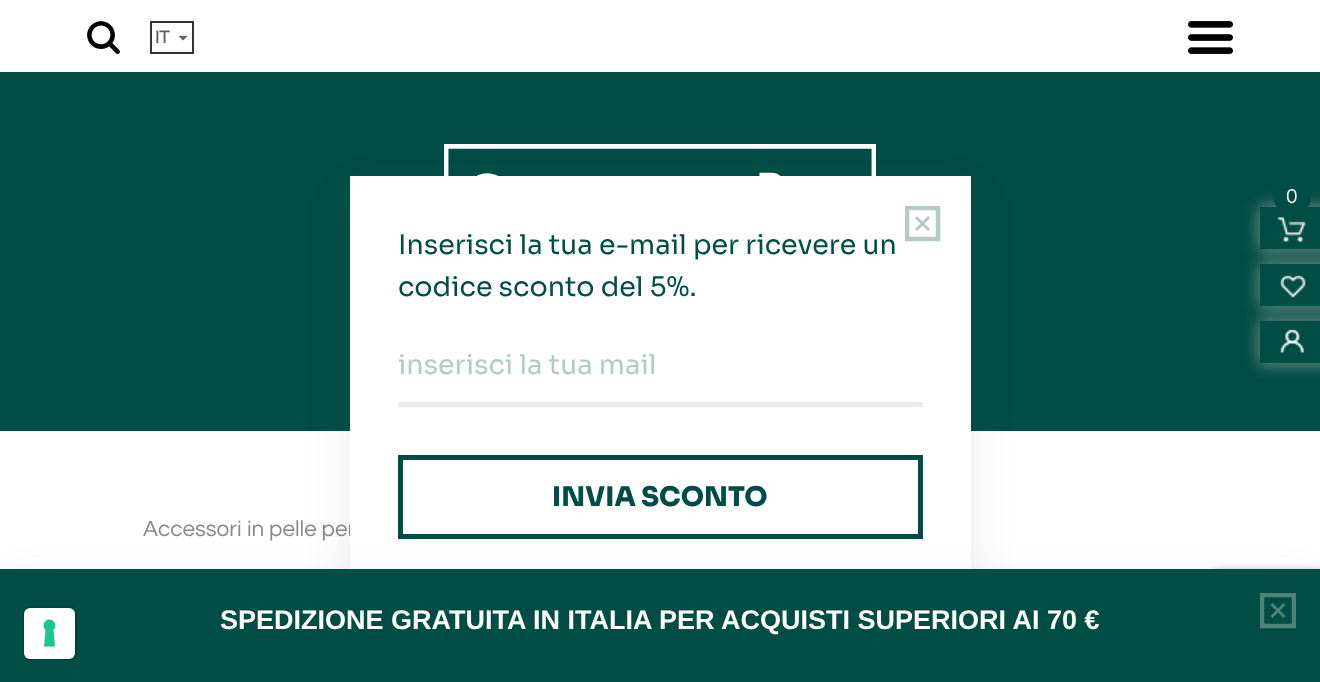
async function draw(canvas) {
  canvas.width = 1320
  canvas.height = 682
  const ctx = canvas.getContext('2d')
  ctx.miterLimit = 4
  ctx.fontKerning = 'normal'
  async function loadImage(src) {
    const img = new Image()
    img.src = src
    await img.decode()
    return img
  }

  ctx.fillStyle = '#fff'
  ctx.fillRect(0, 0, 1320, 682)
  ctx.drawImage(await loadImage('image0.png'), 87, 21, 33, 33)
  ctx.strokeStyle = '#333'
  ctx.lineWidth = 2
  ctx.strokeRect(151, 22, 42, 31)
  ctx.font = 'bold 18px Questrial'
  ctx.fillStyle = '#5f5f5f'
  ctx.fillText('IT', 155, 43)
  ctx.beginPath()
  ctx.moveTo(178.5, 36)
  ctx.lineTo(187.5, 36)
  ctx.lineTo(183, 40.5)
  ctx.closePath()
  ctx.fill()
  ctx.drawImage(await loadImage('image1.png'), 1188, 21, 45, 33)
  ctx.fillStyle = '#004d45'
  ctx.fillRect(0, 72, 1320, 359)
  ctx.drawImage(await loadImage('image2.png'), 444, 144, 432, 32)
  ctx.save()
  ctx.beginPath()
  ctx.moveTo(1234, 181)
  ctx.lineTo(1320, 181)
  ctx.lineTo(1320, 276)
  ctx.lineTo(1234, 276)
  ctx.closePath()
  ctx.moveTo(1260, 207)
  ctx.lineTo(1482, 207)
  ctx.lineTo(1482, 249)
  ctx.lineTo(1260, 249)
  ctx.closePath()
  ctx.clip('evenodd')
  ctx.fillStyle = '#b8b8b899'
  ctx.filter = 'blur(8px)'
  ctx.beginPath()
  ctx.rect(1259, 206, 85, 45)
  ctx.fill()
  ctx.filter = 'none'
  ctx.restore()
  ctx.beginPath()
  ctx.arc(1292.5, 197.5, 18.5, 0, 2 * Math.PI)
  ctx.fill()
  ctx.font = '21px Questrial'
  ctx.fillStyle = '#fff'
  ctx.fillText('0', 1286, 203)
  ctx.fillStyle = '#b8b8b899'
  ctx.filter = 'blur(8px)'
  ctx.beginPath()
  ctx.rect(1259, 263, 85, 45)
  ctx.fill()
  ctx.filter = 'none'
  ctx.drawImage(await loadImage('image3.png'), 1277, 217, 29, 25)
  ctx.fillStyle = '#004d45'
  ctx.fillRect(1260, 264, 60, 42)
  ctx.fillStyle = '#b8b8b899'
  ctx.filter = 'blur(8px)'
  ctx.beginPath()
  ctx.rect(1259, 320, 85, 45)
  ctx.fill()
  ctx.filter = 'none'
  ctx.drawImage(await loadImage('image4.png'), 1280, 275, 26, 23)
  ctx.fillStyle = '#004d45'
  ctx.fillRect(1260, 321, 60, 42)
  ctx.drawImage(await loadImage('image5.png'), 1280, 329, 24, 24)
  ctx.font = '22.5px Questrial'
  ctx.fillStyle = '#888'
  ctx.fillText('Accessori in pelle per', 143, 536)
  ctx.fillStyle = '#363d4d26'
  ctx.filter = 'blur(24px)'
  ctx.beginPath()
  ctx.rect(357, 200, 606, 477)
  ctx.fill()
  ctx.filter = 'none'
  ctx.fillStyle = '#fff'
  ctx.fillRect(350, 176, 621, 393)
  ctx.save()
  ctx.beginPath()
  ctx.rect(905, 206, 36, 36)
  ctx.clip()
  ctx.beginPath()
  ctx.moveTo(938, 208)
  ctx.lineTo(938, 239)
  ctx.lineTo(907, 239)
  ctx.lineTo(907, 208)
  ctx.closePath()
  ctx.strokeStyle = '#b3cac7'
  ctx.lineWidth = 4.5
  ctx.stroke()
  ctx.restore()
  ctx.fillStyle = '#b3cac7'
  ctx.beginPath()
  ctx.moveTo(930, 218)
  ctx.lineTo(928, 216)
  ctx.lineTo(922.5, 221.5)
  ctx.lineTo(917, 216)
  ctx.lineTo(915, 218)
  ctx.lineTo(920.5, 223.5)
  ctx.lineTo(915, 229)
  ctx.lineTo(917, 231)
  ctx.lineTo(922.5, 225.5)
  ctx.lineTo(928, 231)
  ctx.lineTo(930, 229)
  ctx.lineTo(924.5, 223.5)
  ctx.closePath()
  ctx.fill()
  ctx.font = '27px Sora'
  ctx.fillStyle = '#004d45'
  ctx.fillText('Inserisci la tua e-mail per ricevere un', 398, 254)
  ctx.fillText('codice sconto del 5%.', 398, 296)
  ctx.fillStyle = '#e6edec'
  ctx.fillRect(398, 402, 525, 5)
  ctx.fillStyle = '#b3cac7'
  ctx.fillText('inserisci la tua mail', 398, 374)
  ctx.strokeStyle = '#004d45'
  ctx.lineWidth = 5
  ctx.strokeRect(400.5, 457.5, 520, 79)
  ctx.font = '800 27px Sora'
  ctx.fillStyle = '#004d45'
  ctx.fillText('INVIA SCONTO', 552, 506)
  ctx.fillStyle = '#363d4d26'
  ctx.filter = 'blur(24px)'
  ctx.beginPath()
  ctx.rect(8, 593, 1305, 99)
  ctx.fill()
  ctx.filter = 'none'
  ctx.fillStyle = '#808080'
  ctx.filter = 'blur(4px)'
  ctx.beginPath()
  ctx.roundRect(1215, 572, 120, 90, 3)
  ctx.fill()
  ctx.filter = 'none'
  ctx.fillStyle = '#004d45'
  ctx.fillRect(0, 569, 1320, 113)
  ctx.beginPath()
  ctx.roundRect(24, 607, 52, 52, 7)
  ctx.strokeStyle = '#00413b'
  ctx.lineWidth = 2
  ctx.stroke()
  ctx.fillStyle = '#fff'
  ctx.beginPath()
  ctx.roundRect(24, 608, 51, 51, 6)
  ctx.fill()
  ctx.fillStyle = '#1cc691'
  ctx.beginPath()
  ctx.moveTo(49.5, 619.5)
  ctx.bezierCurveTo(55, 619.5, 57.5, 626.5, 53.5, 630)
  ctx.lineTo(55, 646.5)
  ctx.lineTo(44, 646.5)
  ctx.lineTo(45.5, 630)
  ctx.bezierCurveTo(41.5, 626.5, 44, 619.5, 49.5, 619.5)
  ctx.closePath()
  ctx.fill('evenodd')
  ctx.font = 'bold 27px Liberation Sans'
  ctx.fillStyle = '#fff'
  ctx.fillText('SPEDIZIONE GRATUITA IN ITALIA PER ACQUISTI SUPERIORI AI 70 €', 220, 629)
  ctx.save()
  ctx.beginPath()
  ctx.rect(1260, 593, 36, 36)
  ctx.clip()
  ctx.beginPath()
  ctx.moveTo(1294, 595)
  ctx.lineTo(1294, 626)
  ctx.lineTo(1262, 626)
  ctx.lineTo(1262, 595)
  ctx.closePath()
  ctx.strokeStyle = '#4d827d'
  ctx.lineWidth = 4.5
  ctx.stroke()
  ctx.restore()
  ctx.fillStyle = '#4d827d'
  ctx.beginPath()
  ctx.moveTo(1285.5, 605)
  ctx.lineTo(1283.5, 603)
  ctx.lineTo(1278, 608.5)
  ctx.lineTo(1272.5, 603)
  ctx.lineTo(1270.5, 605)
  ctx.lineTo(1276, 610.5)
  ctx.lineTo(1270.5, 616)
  ctx.lineTo(1272.5, 618)
  ctx.lineTo(1278, 612.5)
  ctx.lineTo(1283.5, 618)
  ctx.lineTo(1285.5, 616)
  ctx.lineTo(1280, 610.5)
  ctx.closePath()
  ctx.fill()
}

draw(document.querySelector('canvas'))
